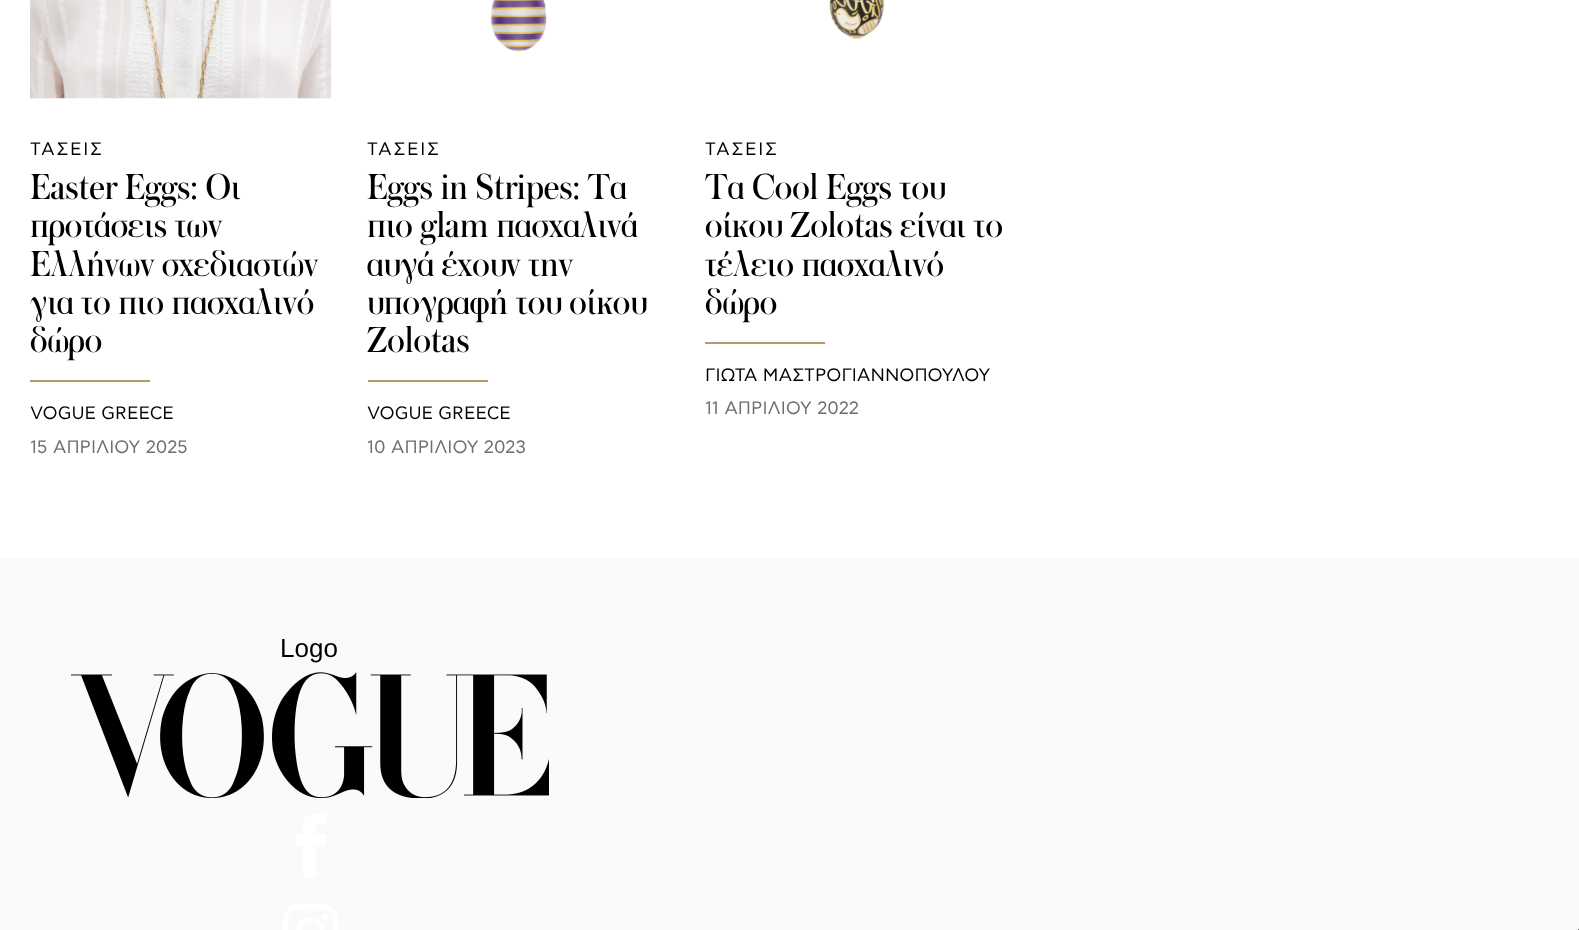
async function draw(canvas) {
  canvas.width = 1579
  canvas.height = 930
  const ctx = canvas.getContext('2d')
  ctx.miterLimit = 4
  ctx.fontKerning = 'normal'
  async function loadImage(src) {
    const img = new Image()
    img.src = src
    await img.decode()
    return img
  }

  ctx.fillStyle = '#fafafa'
  ctx.fillRect(0, 0, 1579, 930)
  ctx.fillStyle = '#fff'
  ctx.fillRect(0, 0, 1579, 558)
  ctx.drawImage(await loadImage('image0.png'), 30, 0, 302, 99)
  ctx.letterSpacing = '1.75px'
  ctx.font = '18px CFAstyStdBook'
  ctx.fillStyle = '#000'
  ctx.fillText('ΤΑΣΕΙΣ', 30, 155)
  ctx.letterSpacing = '0px'
  ctx.font = '39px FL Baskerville'
  ctx.fillText('Easter Eggs: Οι', 30, 199)
  ctx.fillText('προτάσεις των', 30, 237)
  ctx.fillText('Ελλήνων σχεδιαστών', 30, 276)
  ctx.fillText('για το πιο πασχαλινό', 30, 314)
  ctx.fillText('δώρο', 30, 352)
  ctx.fillStyle = '#b89a6a'
  ctx.fillRect(30, 380, 120, 2)
  ctx.font = '18px CFAstyStdBook'
  ctx.fillStyle = '#000'
  ctx.fillText('VOGUE GREECE', 30, 419)
  ctx.fillStyle = '#6c6e70'
  ctx.fillText('15 ΑΠΡΙΛΙΟΥ 2025', 30, 453)
  ctx.drawImage(await loadImage('image1.png'), 490, 0, 57, 52)
  ctx.letterSpacing = '1.75px'
  ctx.fillStyle = '#000'
  ctx.fillText('ΤΑΣΕΙΣ', 367, 155)
  ctx.letterSpacing = '0px'
  ctx.font = '39px FL Baskerville'
  ctx.fillText('Eggs in Stripes: Τα', 367, 199)
  ctx.fillText('πιο glam πασχαλινά', 367, 237)
  ctx.fillText('αυγά έχουν την', 367, 276)
  ctx.fillText('υπογραφή του οίκου', 367, 314)
  ctx.fillText('Zolotas', 367, 352)
  ctx.fillStyle = '#b89a6a'
  ctx.fillRect(368, 380, 120, 2)
  ctx.font = '18px CFAstyStdBook'
  ctx.fillStyle = '#000'
  ctx.fillText('VOGUE GREECE', 367, 419)
  ctx.fillStyle = '#6c6e70'
  ctx.fillText('10 ΑΠΡΙΛΙΟΥ 2023', 367, 453)
  ctx.drawImage(await loadImage('image2.png'), 829, 0, 56, 39)
  ctx.letterSpacing = '1.75px'
  ctx.fillStyle = '#000'
  ctx.fillText('ΤΑΣΕΙΣ', 705, 155)
  ctx.letterSpacing = '0px'
  ctx.font = '39px FL Baskerville'
  ctx.fillText('Τα Cool Eggs του', 705, 199)
  ctx.fillText('οίκου Zolotas είναι το', 705, 237)
  ctx.fillText('τέλειο πασχαλινό', 705, 276)
  ctx.fillText('δώρο', 705, 314)
  ctx.fillStyle = '#b89a6a'
  ctx.fillRect(705, 342, 120, 2)
  ctx.font = '18px CFAstyStdBook'
  ctx.fillStyle = '#000'
  ctx.fillText('ΓΙΩΤΑ ΜΑΣΤΡΟΓΙΑΝΝΟΠΟΥΛΟΥ', 705, 381)
  ctx.fillStyle = '#6c6e70'
  ctx.fillText('11 ΑΠΡΙΛΙΟΥ 2022', 705, 414)
  ctx.font = '26px Liberation Sans'
  ctx.fillStyle = '#000'
  ctx.fillText('Logo', 280, 657)
  ctx.drawImage(await loadImage('image3.png'), 71, 672, 478, 126)
  ctx.fillStyle = '#fff'
  ctx.beginPath()
  ctx.moveTo(316, 878)
  ctx.lineTo(316, 846)
  ctx.lineTo(325, 846)
  ctx.lineTo(326, 834)
  ctx.lineTo(316, 834)
  ctx.bezierCurveTo(316, 824, 315, 824, 326, 824)
  ctx.lineTo(326, 813)
  ctx.bezierCurveTo(307, 813, 303, 813, 303, 834)
  ctx.lineTo(296, 834)
  ctx.lineTo(296, 846)
  ctx.lineTo(303, 846)
  ctx.lineTo(303, 878)
  ctx.closePath()
  ctx.fill('evenodd')
  ctx.drawImage(await loadImage('image4.png'), 283, 904, 55, 26)
  ctx.fillStyle = '#737373'
  ctx.fillRect(1578, 929, 1, 1)
}

draw(document.querySelector('canvas'))
